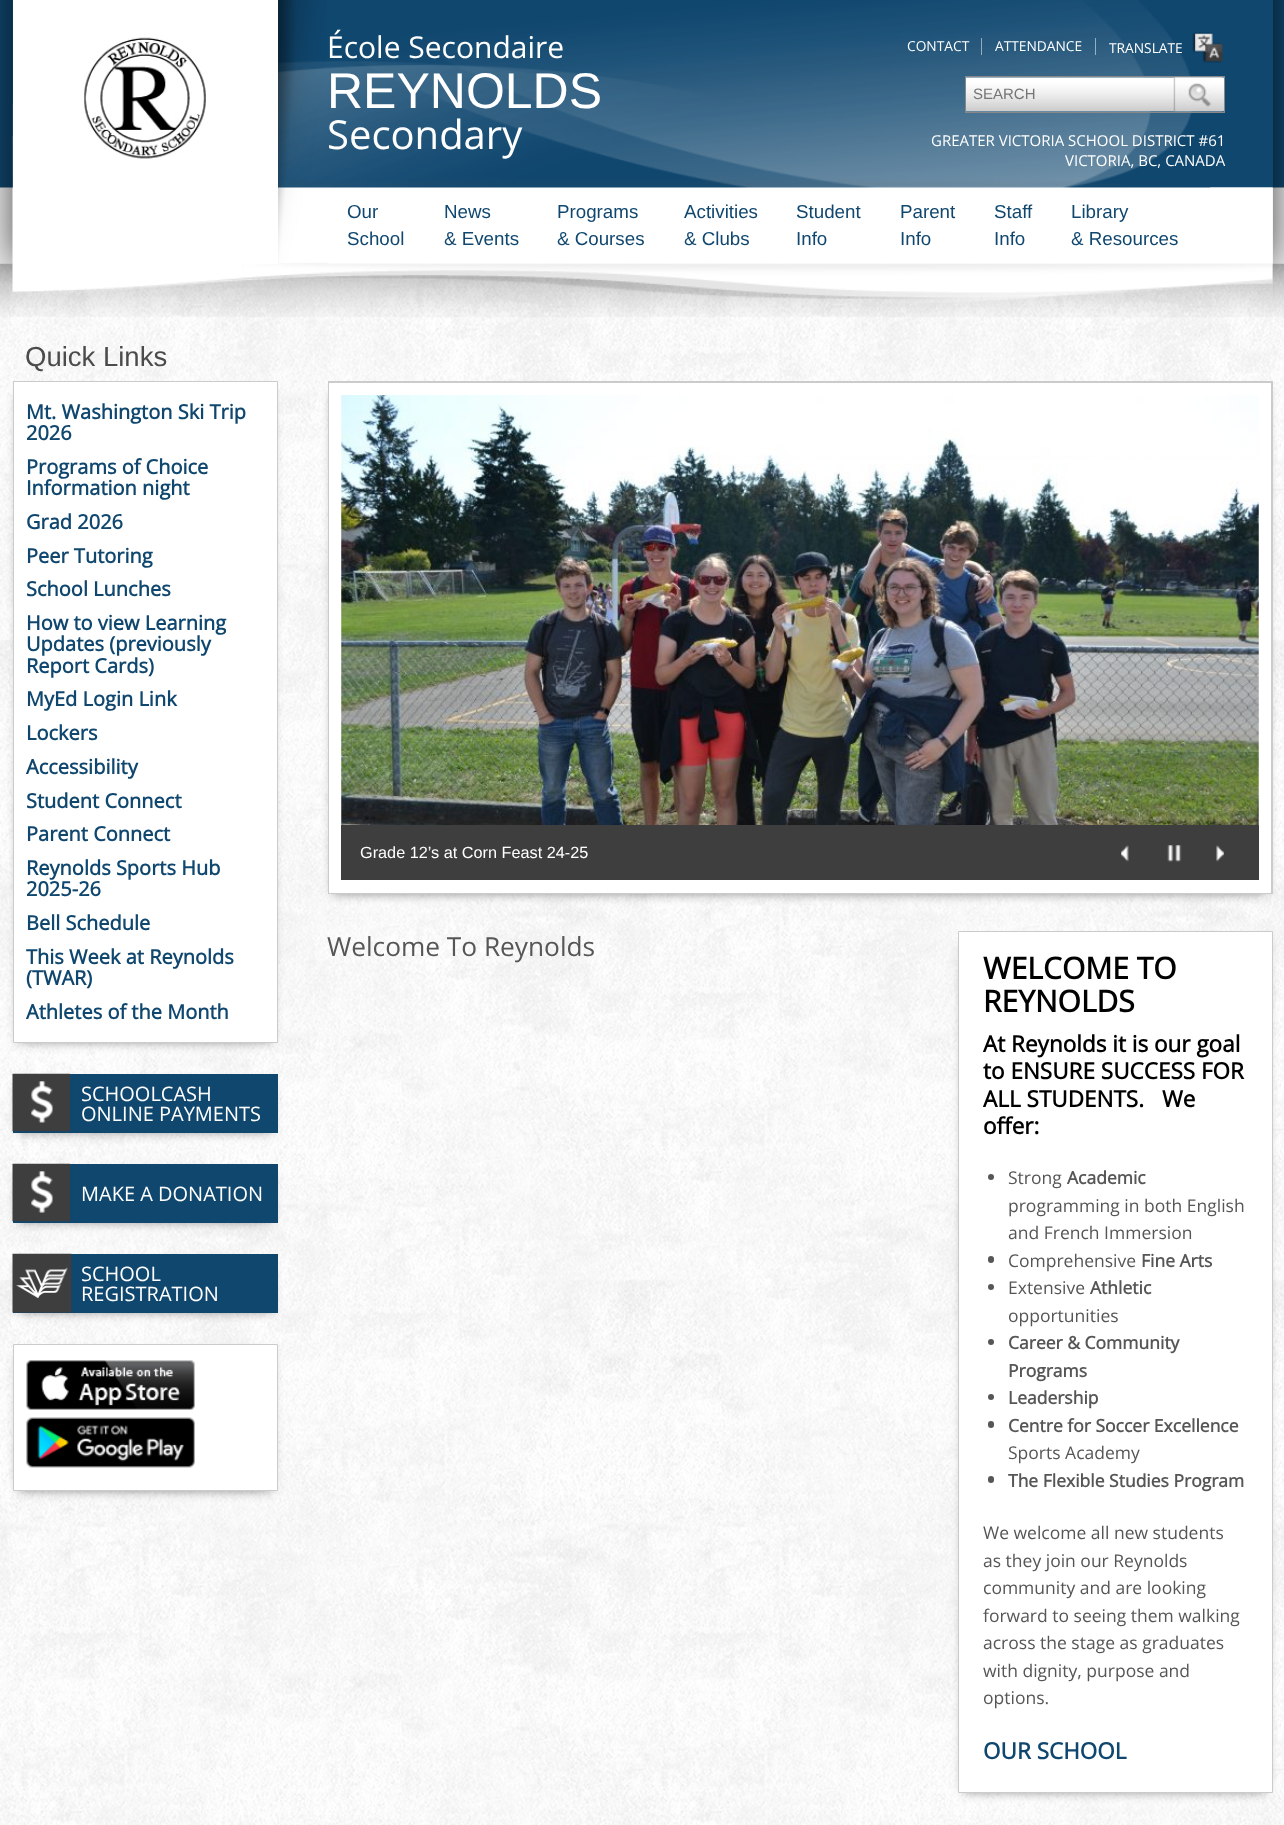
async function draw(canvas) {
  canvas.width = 1284
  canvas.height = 1825
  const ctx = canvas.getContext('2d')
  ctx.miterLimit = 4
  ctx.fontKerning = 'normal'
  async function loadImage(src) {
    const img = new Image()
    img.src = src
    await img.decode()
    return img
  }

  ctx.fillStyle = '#fff'
  ctx.fillRect(0, 0, 1284, 1825)
  ctx.drawImage(await loadImage('image0.png'), 0, 263, 1284, 1562)
  ctx.drawImage(await loadImage('image1.png'), 0, 0, 1284, 317)
  ctx.save()
  ctx.beginPath()
  ctx.moveTo(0, 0)
  ctx.lineTo(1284, 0)
  ctx.lineTo(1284, 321)
  ctx.lineTo(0, 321)
  ctx.closePath()
  ctx.moveTo(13, 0)
  ctx.lineTo(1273, 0)
  ctx.lineTo(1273, 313)
  ctx.lineTo(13, 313)
  ctx.closePath()
  ctx.clip('evenodd')
  ctx.fillStyle = '#000000b3'
  ctx.filter = 'blur(19px)'
  ctx.beginPath()
  ctx.rect(13, -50, 1260, 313)
  ctx.fill()
  ctx.filter = 'none'
  ctx.restore()
  ctx.drawImage(await loadImage('image2.png'), 12, 263, 1261, 40)
  ctx.drawImage(await loadImage('image3.png'), 12, 0, 1261, 264)
  ctx.drawImage(await loadImage('image4.png'), 278, 0, 49, 264)
  ctx.fillRect(13, 0, 265, 264)
  ctx.drawImage(await loadImage('image5.png'), 84, 37, 122, 122)
  ctx.font = '30px Open Sans'
  ctx.fillText('École Secondaire', 327, 58)
  ctx.font = '50px Liberation Sans'
  ctx.fillText('REYNOLDS', 327, 108)
  ctx.font = '40px Open Sans'
  ctx.fillText('Secondary', 327, 149)
  ctx.fillStyle = '#ffffff80'
  ctx.fillRect(981, 38, 1, 17)
  ctx.font = '13.75px Open Sans'
  ctx.fillStyle = '#fff'
  ctx.fillText('CONTACT', 907, 51)
  ctx.fillStyle = '#ffffff80'
  ctx.fillRect(1095, 38, 1, 17)
  ctx.fillStyle = '#fff'
  ctx.fillText('ATTENDANCE', 995, 51)
  ctx.fillText('TRANSLATE', 1109, 53)
  ctx.drawImage(await loadImage('image6.png'), 1192, 32, 31, 31)
  ctx.drawImage(await loadImage('image7.png'), 966, 77, 258, 35)
  ctx.strokeStyle = '#888'
  ctx.strokeRect(965.5, 76.5, 259, 36)
  ctx.font = '15px Liberation Sans'
  ctx.fillStyle = '#757575'
  ctx.fillText('SEARCH', 973, 99)
  ctx.drawImage(await loadImage('image8.png'), 1173, 77, 50, 35)
  ctx.font = '15px Open Sans'
  ctx.fillStyle = '#fff'
  ctx.fillText('GREATER VICTORIA SCHOOL DISTRICT #61', 931, 146)
  ctx.fillText('VICTORIA, BC, CANADA', 1065, 166)
  ctx.fillRect(328, 263, 1, 1)
  ctx.font = '18.75px Liberation Sans'
  ctx.fillStyle = '#10476f'
  ctx.fillText('Our', 347, 218)
  ctx.fillText('School', 347, 245)
  ctx.fillStyle = '#fff'
  ctx.fillRect(424, 263, 1, 1)
  ctx.fillStyle = '#10476f'
  ctx.fillText('News', 444, 218)
  ctx.fillText('& Events', 444, 245)
  ctx.fillStyle = '#fff'
  ctx.fillRect(538, 263, 1, 1)
  ctx.fillStyle = '#10476f'
  ctx.fillText('Programs', 557, 218)
  ctx.fillText('& Courses', 557, 245)
  ctx.fillStyle = '#fff'
  ctx.fillRect(664, 263, 1, 1)
  ctx.fillStyle = '#10476f'
  ctx.fillText('Activities', 684, 218)
  ctx.fillText('& Clubs', 684, 245)
  ctx.fillStyle = '#fff'
  ctx.fillRect(776, 263, 1, 1)
  ctx.fillStyle = '#10476f'
  ctx.fillText('Student', 796, 218)
  ctx.fillText('Info', 796, 245)
  ctx.fillStyle = '#fff'
  ctx.fillRect(880, 263, 1, 1)
  ctx.fillStyle = '#10476f'
  ctx.fillText('Parent', 900, 218)
  ctx.fillText('Info', 900, 245)
  ctx.fillStyle = '#fff'
  ctx.fillRect(974, 263, 1, 1)
  ctx.fillStyle = '#10476f'
  ctx.fillText('Staff', 994, 218)
  ctx.fillText('Info', 994, 245)
  ctx.fillStyle = '#fff'
  ctx.fillRect(1051, 263, 1, 1)
  ctx.fillStyle = '#10476f'
  ctx.fillText('Library', 1071, 218)
  ctx.fillText('& Resources', 1071, 245)
  ctx.font = '27.5px Liberation Sans'
  ctx.fillStyle = '#4b4b4b'
  ctx.fillText('Quick Links', 25, 366)
  ctx.fillStyle = '#00000080'
  ctx.filter = 'blur(6px)'
  ctx.beginPath()
  ctx.rect(19, 393, 252, 648)
  ctx.fill()
  ctx.filter = 'none'
  ctx.fillStyle = '#fff'
  ctx.beginPath()
  ctx.rect(13.5, 381.5, 264, 661)
  ctx.fill()
  ctx.strokeStyle = '#cbcbcb'
  ctx.stroke()
  ctx.font = 'bold 20px Open Sans'
  ctx.fillStyle = '#10476f'
  ctx.fillText('Mt. Washington Ski Trip', 26, 419)
  ctx.fillText('2026', 26, 440)
  ctx.fillText('Programs of Choice', 26, 474)
  ctx.fillText('Information night', 26, 495)
  ctx.fillText('Grad 2026', 26, 529)
  ctx.fillText('Peer Tutoring', 26, 563)
  ctx.fillText('School Lunches', 26, 596)
  ctx.fillText('How to view Learning', 26, 630)
  ctx.fillText('Updates (previously', 26, 651)
  ctx.fillText('Report Cards)', 26, 673)
  ctx.fillText('MyEd Login Link', 26, 706)
  ctx.fillText('Lockers', 26, 740)
  ctx.fillText('Accessibility', 26, 774)
  ctx.fillText('Student Connect', 26, 808)
  ctx.fillText('Parent Connect', 26, 841)
  ctx.fillText('Reynolds Sports Hub', 26, 875)
  ctx.fillText('2025-26', 26, 896)
  ctx.fillText('Bell Schedule', 26, 930)
  ctx.fillText('This Week at Reynolds', 26, 964)
  ctx.fillText('(TWAR)', 26, 985)
  ctx.fillText('Athletes of the Month', 26, 1019)
  ctx.fillStyle = '#00000080'
  ctx.filter = 'blur(6px)'
  ctx.beginPath()
  ctx.rect(19, 1085, 252, 46)
  ctx.fill()
  ctx.filter = 'none'
  ctx.fillStyle = '#10476f'
  ctx.fillRect(13, 1074, 265, 59)
  ctx.drawImage(await loadImage('image9.png'), 12, 1073, 58, 59)
  ctx.font = '20px Open Sans'
  ctx.fillStyle = '#fff'
  ctx.fillText('SCHOOLCASH', 81, 1101)
  ctx.fillText('ONLINE PAYMENTS', 81, 1121)
  ctx.fillStyle = '#00000080'
  ctx.filter = 'blur(6px)'
  ctx.beginPath()
  ctx.rect(19, 1175, 252, 46)
  ctx.fill()
  ctx.filter = 'none'
  ctx.fillStyle = '#10476f'
  ctx.fillRect(13, 1164, 265, 59)
  ctx.drawImage(await loadImage('image10.png'), 12, 1163, 58, 59)
  ctx.fillStyle = '#fff'
  ctx.fillText('MAKE A DONATION', 81, 1201)
  ctx.fillStyle = '#00000080'
  ctx.filter = 'blur(6px)'
  ctx.beginPath()
  ctx.rect(19, 1265, 252, 46)
  ctx.fill()
  ctx.filter = 'none'
  ctx.fillStyle = '#10476f'
  ctx.fillRect(13, 1254, 265, 59)
  ctx.drawImage(await loadImage('image11.png'), 12, 1253, 60, 60)
  ctx.fillStyle = '#fff'
  ctx.fillText('SCHOOL', 81, 1281)
  ctx.fillText('REGISTRATION', 81, 1301)
  ctx.fillStyle = '#00000080'
  ctx.filter = 'blur(6px)'
  ctx.beginPath()
  ctx.rect(19, 1355, 252, 135)
  ctx.fill()
  ctx.filter = 'none'
  ctx.fillStyle = '#fff'
  ctx.beginPath()
  ctx.rect(13.5, 1344.5, 264, 146)
  ctx.fill()
  ctx.stroke()
  ctx.drawImage(await loadImage('image12.png'), 26, 1360, 169, 50)
  ctx.drawImage(await loadImage('image13.png'), 26, 1417, 169, 51)
  ctx.fillStyle = '#00000080'
  ctx.filter = 'blur(6px)'
  ctx.beginPath()
  ctx.rect(334, 393, 932, 500)
  ctx.fill()
  ctx.filter = 'none'
  ctx.fillStyle = '#cbcbcb'
  ctx.fillRect(328, 381, 945, 513)
  ctx.fillStyle = '#fff'
  ctx.fillRect(329, 383, 942, 510)
  ctx.fillStyle = '#3e3e3e'
  ctx.fillRect(341, 825, 918, 55)
  ctx.drawImage(await loadImage('image14.png'), 1121, 845, 8, 17)
  ctx.drawImage(await loadImage('image15.png'), 1216, 845, 8, 17)
  ctx.drawImage(await loadImage('image16.png'), 341, 395, 918, 430)
  ctx.font = '16.25px Liberation Sans'
  ctx.fillStyle = '#fff'
  ctx.fillText('Grade 12’s at Corn Feast 24-25', 360, 858)
  ctx.drawImage(await loadImage('image17.png'), 1167, 845, 15, 17)
  ctx.font = '26.25px Open Sans'
  ctx.fillStyle = '#565656'
  ctx.fillText('Welcome To Reynolds', 327, 956)
  ctx.fillStyle = '#00000080'
  ctx.filter = 'blur(6px)'
  ctx.beginPath()
  ctx.rect(964, 943, 302, 848)
  ctx.fill()
  ctx.filter = 'none'
  ctx.fillStyle = '#fff'
  ctx.beginPath()
  ctx.rect(958.5, 931.5, 314, 861)
  ctx.fill()
  ctx.stroke()
  ctx.font = 'bold 30px Open Sans'
  ctx.fillStyle = '#000'
  ctx.fillText('WELCOME TO', 983, 979)
  ctx.fillText('REYNOLDS', 983, 1012)
  ctx.font = 'bold 22.5px Open Sans'
  ctx.fillText('At Reynolds it is our goal', 983, 1052)
  ctx.fillText('to ENSURE SUCCESS FOR', 983, 1079)
  ctx.fillText('ALL STUDENTS.', 983, 1107)
  ctx.fillText('We', 1162, 1107)
  ctx.fillText('offer:', 983, 1134)
  ctx.fillStyle = '#565656'
  ctx.beginPath()
  ctx.arc(991, 1177, 3, 0, 2 * Math.PI)
  ctx.fill()
  ctx.font = '17.5px Open Sans'
  ctx.fillText('Strong', 1008, 1184)
  ctx.font = 'bold 17.5px Open Sans'
  ctx.fillText('Academic', 1067, 1184)
  ctx.font = '17.5px Open Sans'
  ctx.fillText('programming in both English', 1008, 1212)
  ctx.fillText('and French Immersion', 1008, 1239)
  ctx.beginPath()
  ctx.roundRect(988, 1256, 6, 7, 3)
  ctx.fill()
  ctx.fillText('Comprehensive', 1008, 1267)
  ctx.font = 'bold 17.5px Open Sans'
  ctx.fillText('Fine Arts', 1141, 1267)
  ctx.beginPath()
  ctx.arc(991, 1287, 3, 0, 2 * Math.PI)
  ctx.fill()
  ctx.font = '17.5px Open Sans'
  ctx.fillText('Extensive', 1008, 1294)
  ctx.font = 'bold 17.5px Open Sans'
  ctx.fillText('Athletic', 1090, 1294)
  ctx.font = '17.5px Open Sans'
  ctx.fillText('opportunities', 1008, 1322)
  ctx.beginPath()
  ctx.arc(991, 1342, 3, 0, 2 * Math.PI)
  ctx.fill()
  ctx.font = 'bold 17.5px Open Sans'
  ctx.fillText('Career & Community', 1008, 1349)
  ctx.fillText('Programs', 1008, 1377)
  ctx.beginPath()
  ctx.arc(991, 1397, 3, 0, 2 * Math.PI)
  ctx.fill()
  ctx.fillText('Leadership', 1008, 1404)
  ctx.beginPath()
  ctx.roundRect(988, 1421, 6, 7, 3)
  ctx.fill()
  ctx.fillText('Centre for Soccer Excellence', 1008, 1432)
  ctx.font = '17.5px Open Sans'
  ctx.fillText('Sports Academy', 1008, 1459)
  ctx.beginPath()
  ctx.roundRect(988, 1476, 6, 7, 3)
  ctx.fill()
  ctx.font = 'bold 17.5px Open Sans'
  ctx.fillText('The Flexible Studies Program', 1008, 1487)
  ctx.font = '17.5px Open Sans'
  ctx.fillText('We welcome all new students', 983, 1539)
  ctx.fillText('as they join our Reynolds', 983, 1567)
  ctx.fillText('community and are looking', 983, 1594)
  ctx.fillText('forward to seeing them walking', 983, 1622)
  ctx.fillText('across the stage as graduates', 983, 1649)
  ctx.fillText('with dignity, purpose and', 983, 1677)
  ctx.fillText('options.', 983, 1704)
  ctx.font = 'bold 22.5px Open Sans'
  ctx.fillStyle = '#10476f'
  ctx.fillText('OUR SCHOOL', 983, 1759)
}

draw(document.querySelector('canvas'))
